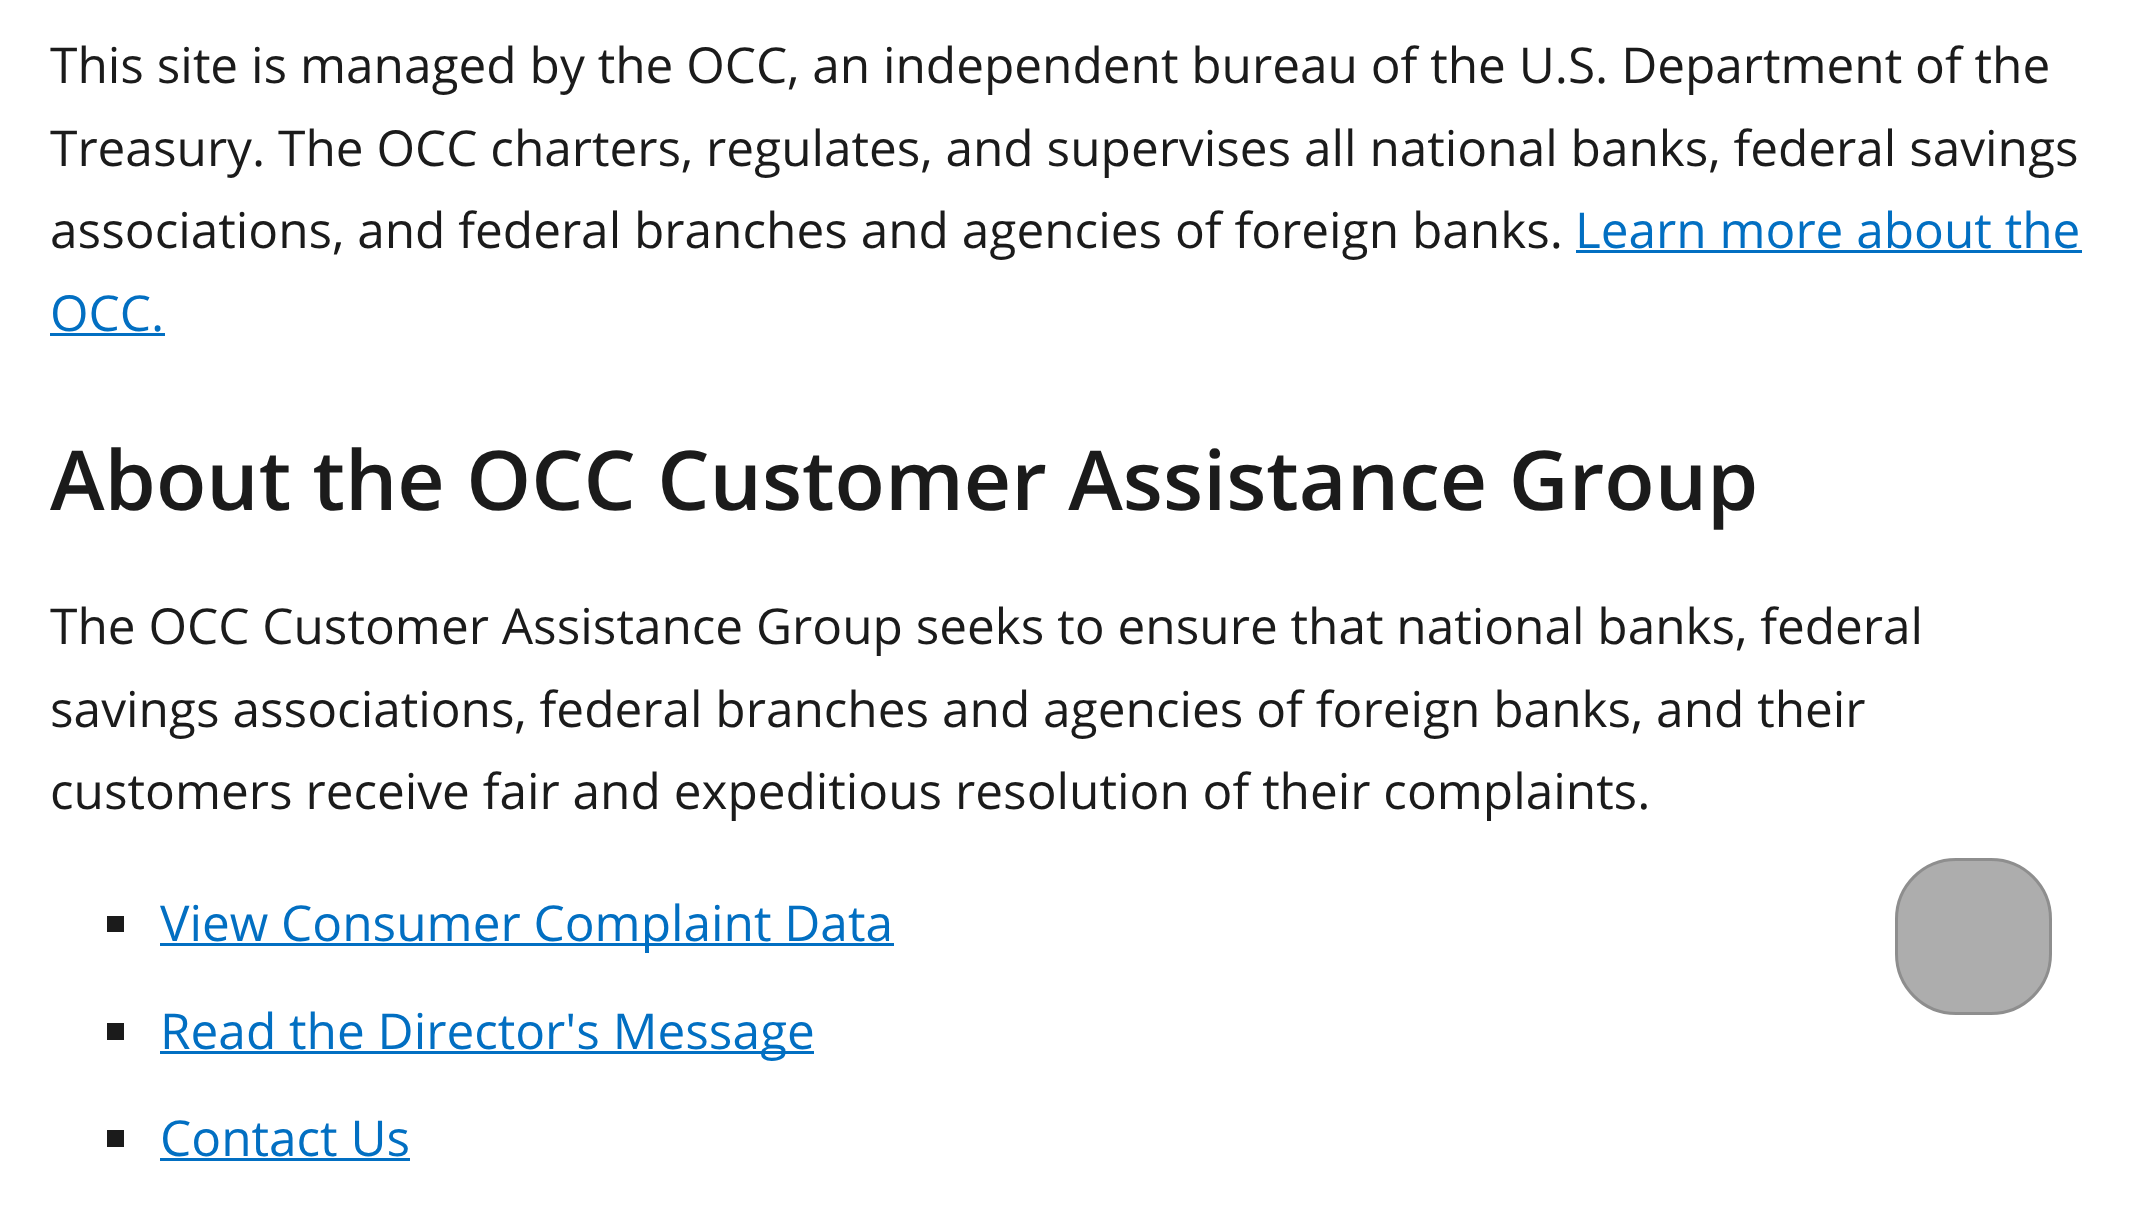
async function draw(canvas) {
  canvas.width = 2147
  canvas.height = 1206
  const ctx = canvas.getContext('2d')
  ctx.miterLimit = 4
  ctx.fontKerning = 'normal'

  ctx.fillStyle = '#fff'
  ctx.fillRect(0, 0, 2147, 1206)
  ctx.font = '49.5px Open Sans'
  ctx.fillStyle = '#1b1b1b'
  ctx.fillText('This site is managed by the OCC, an independent bureau of the U.S. Department of the', 50, 83)
  ctx.fillText('Treasury. The OCC charters, regulates, and supervises all national banks, federal savings', 50, 166)
  ctx.fillText('associations, and federal branches and agencies of foreign banks.', 50, 248)
  ctx.fillStyle = '#026fc2'
  ctx.fillText('Learn more about the', 1575, 248)
  ctx.fillRect(1576, 250, 506, 3)
  ctx.fillText('OCC.', 50, 331)
  ctx.fillRect(50, 333, 115, 3)
  ctx.font = '600 82.5px Open Sans'
  ctx.fillStyle = '#1b1b1b'
  ctx.fillText('About the OCC Customer Assistance Group', 50, 510)
  ctx.font = '49.5px Open Sans'
  ctx.fillText('The OCC Customer Assistance Group seeks to ensure that national banks, federal', 50, 644)
  ctx.fillText('savings associations, federal branches and agencies of foreign banks, and their', 50, 727)
  ctx.fillText('customers receive fair and expeditious resolution of their complaints.', 50, 809)
  ctx.fillRect(107, 916, 17, 16)
  ctx.fillStyle = '#026fc2'
  ctx.fillRect(160, 943, 734, 3)
  ctx.fillText('View Consumer Complaint Data', 160, 941)
  ctx.fillStyle = '#1b1b1b'
  ctx.fillRect(107, 1023, 17, 17)
  ctx.fillStyle = '#026fc2'
  ctx.fillRect(160, 1051, 654, 3)
  ctx.fillText('Read the Director\'s Message', 160, 1049)
  ctx.fillStyle = '#1b1b1b'
  ctx.fillRect(107, 1130, 17, 17)
  ctx.fillStyle = '#026fc2'
  ctx.fillText('Contact Us', 160, 1156)
  ctx.fillRect(160, 1158, 250, 3)
  ctx.fillStyle = '#adadad'
  ctx.beginPath()
  ctx.roundRect(1896.5, 859.5, 154, 154, 59.5)
  ctx.fill()
  ctx.strokeStyle = '#8e8e8e'
  ctx.lineWidth = 3
  ctx.stroke()
}

draw(document.querySelector('canvas'))
